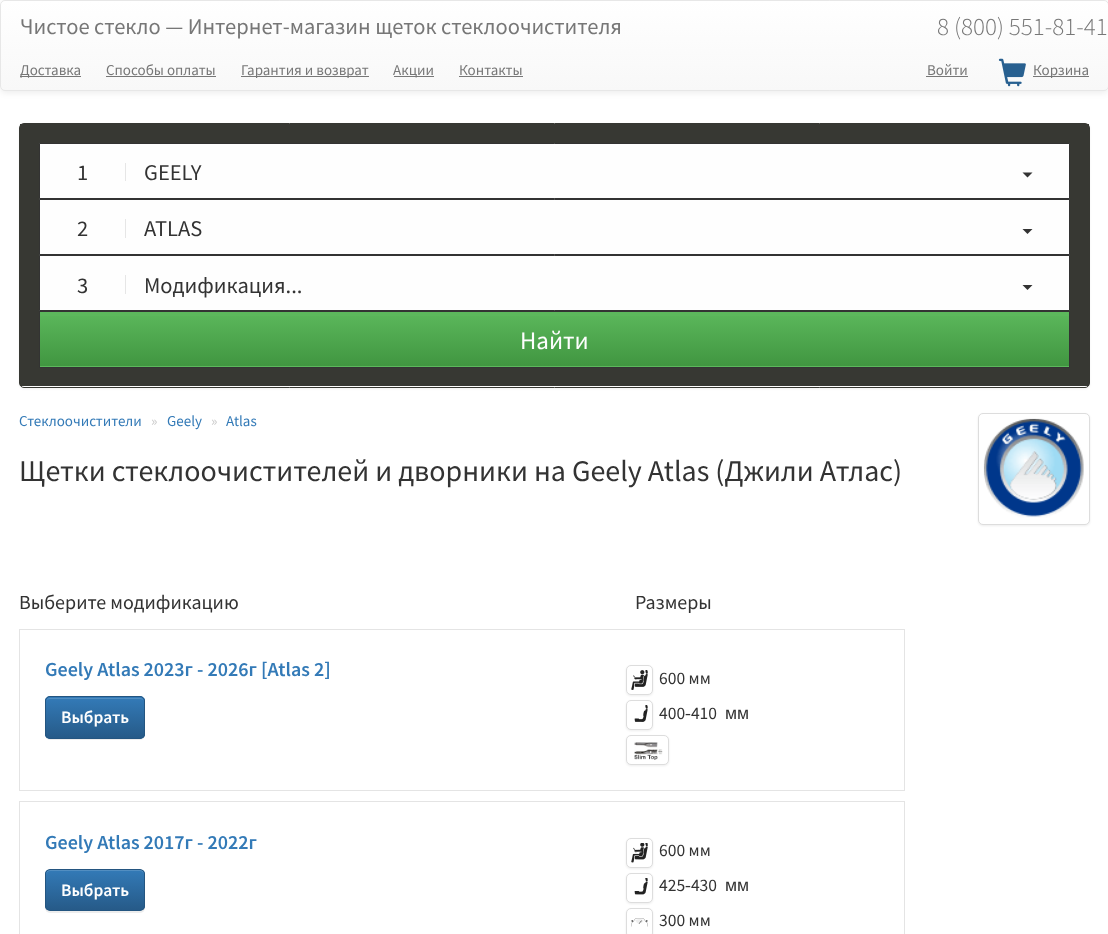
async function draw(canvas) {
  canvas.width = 1108
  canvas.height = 934
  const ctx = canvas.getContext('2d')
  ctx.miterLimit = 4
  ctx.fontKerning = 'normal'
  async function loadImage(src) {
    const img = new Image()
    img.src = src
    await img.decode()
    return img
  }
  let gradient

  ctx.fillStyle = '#fff'
  ctx.fillRect(0, 0, 1108, 934)
  ctx.fillStyle = '#00000012'
  ctx.filter = 'blur(3px)'
  ctx.beginPath()
  ctx.roundRect(0, 1, 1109, 92, 5)
  ctx.fill()
  ctx.filter = 'none'
  ctx.save()
  ctx.beginPath()
  ctx.roundRect(0, 0, 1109, 91, 5)
  ctx.clip()
  gradient = ctx.createLinearGradient(554, 1.2, 554, 90)
  gradient.addColorStop(0, '#fff')
  gradient.addColorStop(1, '#f8f8f8')
  ctx.fillStyle = gradient
  ctx.fillRect(0, 1, 1108, 89)
  ctx.restore()
  ctx.beginPath()
  ctx.roundRect(0.5, 0.5, 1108, 90, 4.5)
  ctx.strokeStyle = '#e7e7e7'
  ctx.stroke()
  ctx.font = '22.5px Source Sans Pro'
  ctx.fillStyle = '#777'
  ctx.fillText('Чистое стекло — Интернет-магазин щеток стеклоочистителя', 20, 34)
  ctx.font = '300 25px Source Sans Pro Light'
  ctx.fillText('8 (800) 551-81-41', 937, 35)
  ctx.fillRect(20, 76, 61, 1)
  ctx.font = '15px Source Sans Pro'
  ctx.fillText('Доставка', 20, 75)
  ctx.fillText('Способы оплаты', 106, 75)
  ctx.fillRect(106, 76, 110, 1)
  ctx.fillRect(241, 76, 128, 1)
  ctx.fillText('Гарантия и возврат', 241, 75)
  ctx.fillRect(394, 76, 40, 1)
  ctx.fillText('Акции', 393, 75)
  ctx.fillText('Контакты', 459, 75)
  ctx.fillRect(459, 76, 64, 1)
  ctx.fillText('Войти', 927, 75)
  ctx.fillRect(926, 76, 42, 1)
  ctx.drawImage(await loadImage('image0.png'), 998, 58, 28, 29)
  ctx.fillRect(1033, 76, 56, 1)
  ctx.fillText('Корзина', 1033, 75)
  ctx.fillStyle = '#0000000d'
  ctx.filter = 'blur(1px)'
  ctx.beginPath()
  ctx.roundRect(19, 124, 1071, 265, 5)
  ctx.fill()
  ctx.filter = 'none'
  ctx.fillStyle = '#fff'
  ctx.beginPath()
  ctx.roundRect(19.5, 123.5, 1070, 264, 4.5)
  ctx.fill()
  ctx.strokeStyle = '#373833'
  ctx.stroke()
  ctx.fillStyle = '#373833'
  ctx.fillRect(20, 124, 1069, 262)
  ctx.fillStyle = '#fefefe'
  ctx.beginPath()
  ctx.rect(39.5, 143.5, 1030, 55)
  ctx.fill()
  ctx.strokeStyle = '#333'
  ctx.stroke()
  ctx.fillStyle = '#e6e6e6'
  ctx.fillRect(125, 163, 1, 18)
  ctx.font = '22.5px Source Sans Pro'
  ctx.fillStyle = '#333'
  ctx.fillText('1', 77, 180)
  ctx.fillText('GEELY', 144, 180)
  ctx.beginPath()
  ctx.moveTo(1022.5, 172.5)
  ctx.lineTo(1032.5, 172.5)
  ctx.lineTo(1027.5, 177.5)
  ctx.closePath()
  ctx.fill()
  ctx.fillStyle = '#fefefe'
  ctx.beginPath()
  ctx.rect(39.5, 199.5, 1030, 55)
  ctx.fill()
  ctx.stroke()
  ctx.fillStyle = '#e6e6e6'
  ctx.fillRect(125, 219, 1, 19)
  ctx.fillStyle = '#333'
  ctx.fillText('2', 77, 236)
  ctx.fillText('ATLAS', 144, 236)
  ctx.beginPath()
  ctx.moveTo(1022.5, 229)
  ctx.lineTo(1032.5, 229)
  ctx.lineTo(1027.5, 234)
  ctx.closePath()
  ctx.fill()
  ctx.fillStyle = '#fefefe'
  ctx.beginPath()
  ctx.rect(39.5, 255.5, 1030, 55)
  ctx.fill()
  ctx.stroke()
  ctx.fillStyle = '#e6e6e6'
  ctx.fillRect(125, 275, 1, 19)
  ctx.fillStyle = '#333'
  ctx.fillText('3', 77, 293)
  ctx.fillText('Модификация...', 144, 293)
  ctx.beginPath()
  ctx.moveTo(1022.5, 285)
  ctx.lineTo(1032.5, 285)
  ctx.lineTo(1027.5, 290)
  ctx.closePath()
  ctx.fill()
  ctx.fillStyle = '#5cb85c'
  ctx.fillRect(40, 312, 1029, 55)
  gradient = ctx.createLinearGradient(554, 312, 554, 366)
  gradient.addColorStop(0, '#5cb85c')
  gradient.addColorStop(1, '#419641')
  ctx.fillStyle = gradient
  ctx.fillRect(40, 316, 1029, 50)
  ctx.strokeRect(39.5, 311.5, 1030, 56)
  ctx.font = '25px Source Sans Pro'
  ctx.fillStyle = '#fefefe'
  ctx.fillText('Найти', 520, 349)
  ctx.font = '15px Source Sans Pro'
  ctx.fillStyle = '#337ab7'
  ctx.fillText('Стеклоочистители', 19, 426)
  ctx.fillStyle = '#ccc'
  ctx.fillText('»', 151, 426)
  ctx.fillStyle = '#337ab7'
  ctx.fillText('Geely', 167, 426)
  ctx.fillStyle = '#ccc'
  ctx.fillText('»', 211, 426)
  ctx.fillStyle = '#337ab7'
  ctx.fillText('Atlas', 226, 426)
  ctx.fillStyle = '#00000012'
  ctx.filter = 'blur(1px)'
  ctx.beginPath()
  ctx.roundRect(978, 414, 112, 112, 5)
  ctx.fill()
  ctx.filter = 'none'
  ctx.fillStyle = '#fff'
  ctx.beginPath()
  ctx.roundRect(978.5, 413.5, 111, 111, 4.5)
  ctx.fill()
  ctx.strokeStyle = '#ddd'
  ctx.stroke()
  ctx.drawImage(await loadImage('image1.png'), 983, 418, 101, 100)
  ctx.font = '30px Source Sans Pro'
  ctx.fillStyle = '#333'
  ctx.fillText('Щетки стеклоочистителей и дворники на Geely Atlas (Джили Атлас)', 19, 481)
  ctx.font = '20px Source Sans Pro'
  ctx.fillText('Выберите модификацию', 19, 609)
  ctx.fillText('Размеры', 635, 609)
  ctx.strokeStyle = '#e4e4e4'
  ctx.strokeRect(19.5, 629.5, 885, 161)
  ctx.font = '600 20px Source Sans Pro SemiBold'
  ctx.fillStyle = '#337ab7'
  ctx.fillText('Geely Atlas 2023г - 2026г [Atlas 2]', 45, 676)
  ctx.fillStyle = '#00000012'
  ctx.filter = 'blur(0.5px)'
  ctx.beginPath()
  ctx.roundRect(45, 698, 100, 42, 5)
  ctx.fill()
  ctx.filter = 'none'
  ctx.fillStyle = '#337ab7'
  ctx.beginPath()
  ctx.roundRect(45, 696, 100, 43, 5)
  ctx.fill()
  ctx.save()
  ctx.beginPath()
  ctx.roundRect(45, 696, 100, 43, 5)
  ctx.clip()
  gradient = ctx.createLinearGradient(95, 698, 95, 738)
  gradient.addColorStop(0, '#337ab7')
  gradient.addColorStop(1, '#265a88')
  ctx.fillStyle = gradient
  ctx.fillRect(45, 698, 100, 40)
  ctx.restore()
  ctx.fillStyle = '#528ec1'
  ctx.beginPath()
  ctx.moveTo(50, 699)
  ctx.lineTo(140, 699)
  ctx.bezierCurveTo(142, 699, 144, 700, 144, 702)
  ctx.bezierCurveTo(144, 700, 142, 698, 140, 698)
  ctx.lineTo(50, 698)
  ctx.bezierCurveTo(48, 698, 46, 700, 46, 702)
  ctx.bezierCurveTo(46, 700, 48, 699, 50, 699)
  ctx.closePath()
  ctx.fill()
  ctx.beginPath()
  ctx.roundRect(45.5, 696.5, 99, 42, 4.5)
  ctx.strokeStyle = '#245580'
  ctx.stroke()
  ctx.font = '600 17.5px Source Sans Pro SemiBold'
  ctx.fillStyle = '#fefefe'
  ctx.fillText('Выбрать', 61, 723)
  ctx.fillStyle = '#00000012'
  ctx.filter = 'blur(1px)'
  ctx.beginPath()
  ctx.roundRect(626, 666, 27, 30, 5)
  ctx.fill()
  ctx.filter = 'none'
  ctx.fillStyle = '#fff'
  ctx.beginPath()
  ctx.roundRect(626.5, 665.5, 26, 29, 4.5)
  ctx.fill()
  ctx.strokeStyle = '#ddd'
  ctx.stroke()
  ctx.drawImage(await loadImage('image2.png'), 631, 670, 17, 20)
  ctx.font = '17.5px Source Sans Pro'
  ctx.fillStyle = '#333'
  ctx.fillText('600 мм', 659, 684)
  ctx.fillStyle = '#00000012'
  ctx.filter = 'blur(1px)'
  ctx.beginPath()
  ctx.roundRect(626, 701, 27, 30, 5)
  ctx.fill()
  ctx.filter = 'none'
  ctx.fillStyle = '#fff'
  ctx.beginPath()
  ctx.roundRect(626.5, 700.5, 26, 29, 4.5)
  ctx.fill()
  ctx.stroke()
  ctx.drawImage(await loadImage('image3.png'), 634, 705, 14, 17)
  ctx.fillStyle = '#333'
  ctx.fillText('400‑410', 659, 719)
  ctx.font = '17.5px Liberation Sans'
  ctx.fillText('мм', 725, 719)
  ctx.fillStyle = '#00000012'
  ctx.filter = 'blur(1px)'
  ctx.beginPath()
  ctx.roundRect(626, 736, 43, 30, 5)
  ctx.fill()
  ctx.filter = 'none'
  ctx.fillStyle = '#fff'
  ctx.beginPath()
  ctx.roundRect(626.5, 735.5, 42, 29, 4.5)
  ctx.fill()
  ctx.stroke()
  ctx.drawImage(await loadImage('image4.png'), 634, 742, 29, 18)
  ctx.strokeStyle = '#e4e4e4'
  ctx.strokeRect(19.5, 801.5, 885, 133)
  ctx.font = '600 20px Source Sans Pro SemiBold'
  ctx.fillStyle = '#337ab7'
  ctx.fillText('Geely Atlas 2017г - 2022г', 45, 849)
  ctx.fillStyle = '#00000012'
  ctx.filter = 'blur(0.5px)'
  ctx.beginPath()
  ctx.roundRect(45, 870, 100, 43, 5)
  ctx.fill()
  ctx.filter = 'none'
  ctx.save()
  ctx.beginPath()
  ctx.roundRect(45, 869, 100, 42, 5)
  ctx.clip()
  gradient = ctx.createLinearGradient(95, 870, 95, 910)
  gradient.addColorStop(0, '#337ab7')
  gradient.addColorStop(1, '#265a88')
  ctx.fillStyle = gradient
  ctx.fillRect(45, 870, 100, 40)
  ctx.restore()
  ctx.fillStyle = '#528ec1'
  ctx.beginPath()
  ctx.moveTo(50, 871)
  ctx.lineTo(140, 871)
  ctx.bezierCurveTo(142, 871, 144, 873, 144, 875)
  ctx.bezierCurveTo(144, 866, 129, 870, 125, 870)
  ctx.lineTo(65, 870)
  ctx.bezierCurveTo(61, 870, 46, 866, 46, 875)
  ctx.bezierCurveTo(46, 873, 48, 871, 50, 871)
  ctx.closePath()
  ctx.fill()
  ctx.beginPath()
  ctx.roundRect(45.5, 869.5, 99, 41, 4.5)
  ctx.strokeStyle = '#245580'
  ctx.stroke()
  ctx.font = '600 17.5px Source Sans Pro SemiBold'
  ctx.fillStyle = '#fefefe'
  ctx.fillText('Выбрать', 61, 896)
  ctx.fillStyle = '#00000012'
  ctx.filter = 'blur(1px)'
  ctx.beginPath()
  ctx.roundRect(626, 839, 27, 30, 5)
  ctx.fill()
  ctx.filter = 'none'
  ctx.fillStyle = '#fff'
  ctx.beginPath()
  ctx.roundRect(626.5, 838.5, 26, 29, 4.5)
  ctx.fill()
  ctx.strokeStyle = '#ddd'
  ctx.stroke()
  ctx.drawImage(await loadImage('image5.png'), 631, 843, 17, 20)
  ctx.font = '17.5px Source Sans Pro'
  ctx.fillStyle = '#333'
  ctx.fillText('600 мм', 659, 856)
  ctx.fillStyle = '#00000012'
  ctx.filter = 'blur(1px)'
  ctx.beginPath()
  ctx.roundRect(626, 874, 27, 30, 5)
  ctx.fill()
  ctx.filter = 'none'
  ctx.fillStyle = '#fff'
  ctx.beginPath()
  ctx.roundRect(626.5, 873.5, 26, 29, 4.5)
  ctx.fill()
  ctx.stroke()
  ctx.drawImage(await loadImage('image6.png'), 634, 878, 14, 17)
  ctx.fillStyle = '#333'
  ctx.fillText('425‑430', 659, 891)
  ctx.font = '17.5px Liberation Sans'
  ctx.fillText('мм', 725, 891)
  ctx.fillStyle = '#00000012'
  ctx.filter = 'blur(1px)'
  ctx.beginPath()
  ctx.roundRect(626, 909, 27, 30, 5)
  ctx.fill()
  ctx.filter = 'none'
  ctx.fillStyle = '#fff'
  ctx.beginPath()
  ctx.roundRect(626.5, 908.5, 26, 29, 4.5)
  ctx.fill()
  ctx.stroke()
  ctx.drawImage(await loadImage('image7.png'), 631, 918, 17, 9)
  ctx.font = '17.5px Source Sans Pro'
  ctx.fillStyle = '#333'
  ctx.fillText('300 мм', 659, 926)
}

draw(document.querySelector('canvas'))
